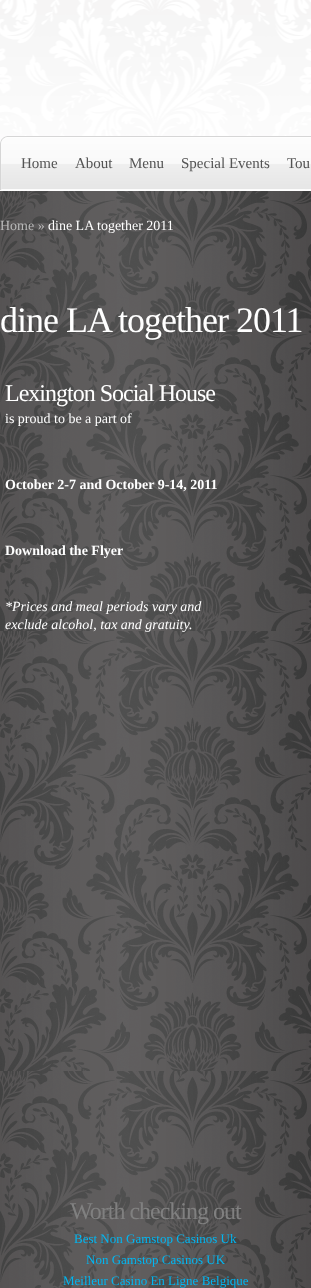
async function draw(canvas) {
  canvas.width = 311
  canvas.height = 1288
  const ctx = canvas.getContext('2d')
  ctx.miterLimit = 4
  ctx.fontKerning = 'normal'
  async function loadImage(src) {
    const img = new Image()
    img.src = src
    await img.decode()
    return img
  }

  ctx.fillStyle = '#fff'
  ctx.fillRect(0, 0, 311, 1288)
  ctx.drawImage(await loadImage('image0.png'), 0, 0, 311, 144)
  ctx.drawImage(await loadImage('image1.png'), 0, 136, 311, 54)
  ctx.font = '15px Liberation Serif'
  ctx.fillStyle = '#535353'
  ctx.fillText('Home', 21, 168)
  ctx.fillText('About', 75, 168)
  ctx.fillText('Menu', 129, 168)
  ctx.fillText('Special Events', 181, 168)
  ctx.fillText('Tou', 287, 168)
  ctx.drawImage(await loadImage('image2.png'), 0, 191, 311, 1097)
  ctx.drawImage(await loadImage('image3.png'), 0, 191, 311, 70)
  ctx.font = '14px Liberation Serif'
  ctx.fillStyle = '#b9b9b9'
  ctx.fillText('Home »', 0, 230)
  ctx.fillStyle = '#fff'
  ctx.fillText('dine LA together 2011', 48, 230)
  ctx.drawImage(await loadImage('image4.png'), 0, 261, 311, 1027)
  ctx.letterSpacing = '-1px'
  ctx.font = '36px Liberation Serif'
  ctx.fillText('dine LA together 2011', 0, 332)
  ctx.font = '24px Liberation Serif'
  ctx.fillText('Lexington Social House', 5, 401)
  ctx.letterSpacing = '0px'
  ctx.font = '14px Liberation Serif'
  ctx.fillText('is proud to be a part of', 5, 423)
  ctx.font = 'bold 14px Liberation Serif'
  ctx.fillText('October 2-7 and October 9-14, 2011', 5, 489)
  ctx.fillText('Download the Flyer', 5, 555)
  ctx.font = 'italic 14px Liberation Serif'
  ctx.fillText('*Prices and meal periods vary and', 5, 611)
  ctx.fillText('exclude alcohol, tax and gratuity.', 5, 629)
  ctx.letterSpacing = '-1px'
  ctx.font = '24px Liberation Serif'
  ctx.fillStyle = '#808080'
  ctx.fillText('Worth checking out', 70, 1219)
  ctx.letterSpacing = '0px'
  ctx.font = '13px Liberation Serif'
  ctx.fillStyle = '#00b7f3'
  ctx.fillText('Best Non Gamstop Casinos Uk', 74, 1243)
  ctx.fillText('Non Gamstop Casinos UK', 86, 1264)
  ctx.fillText('Meilleur Casino En Ligne Belgique', 63, 1285)
}

draw(document.querySelector('canvas'))
